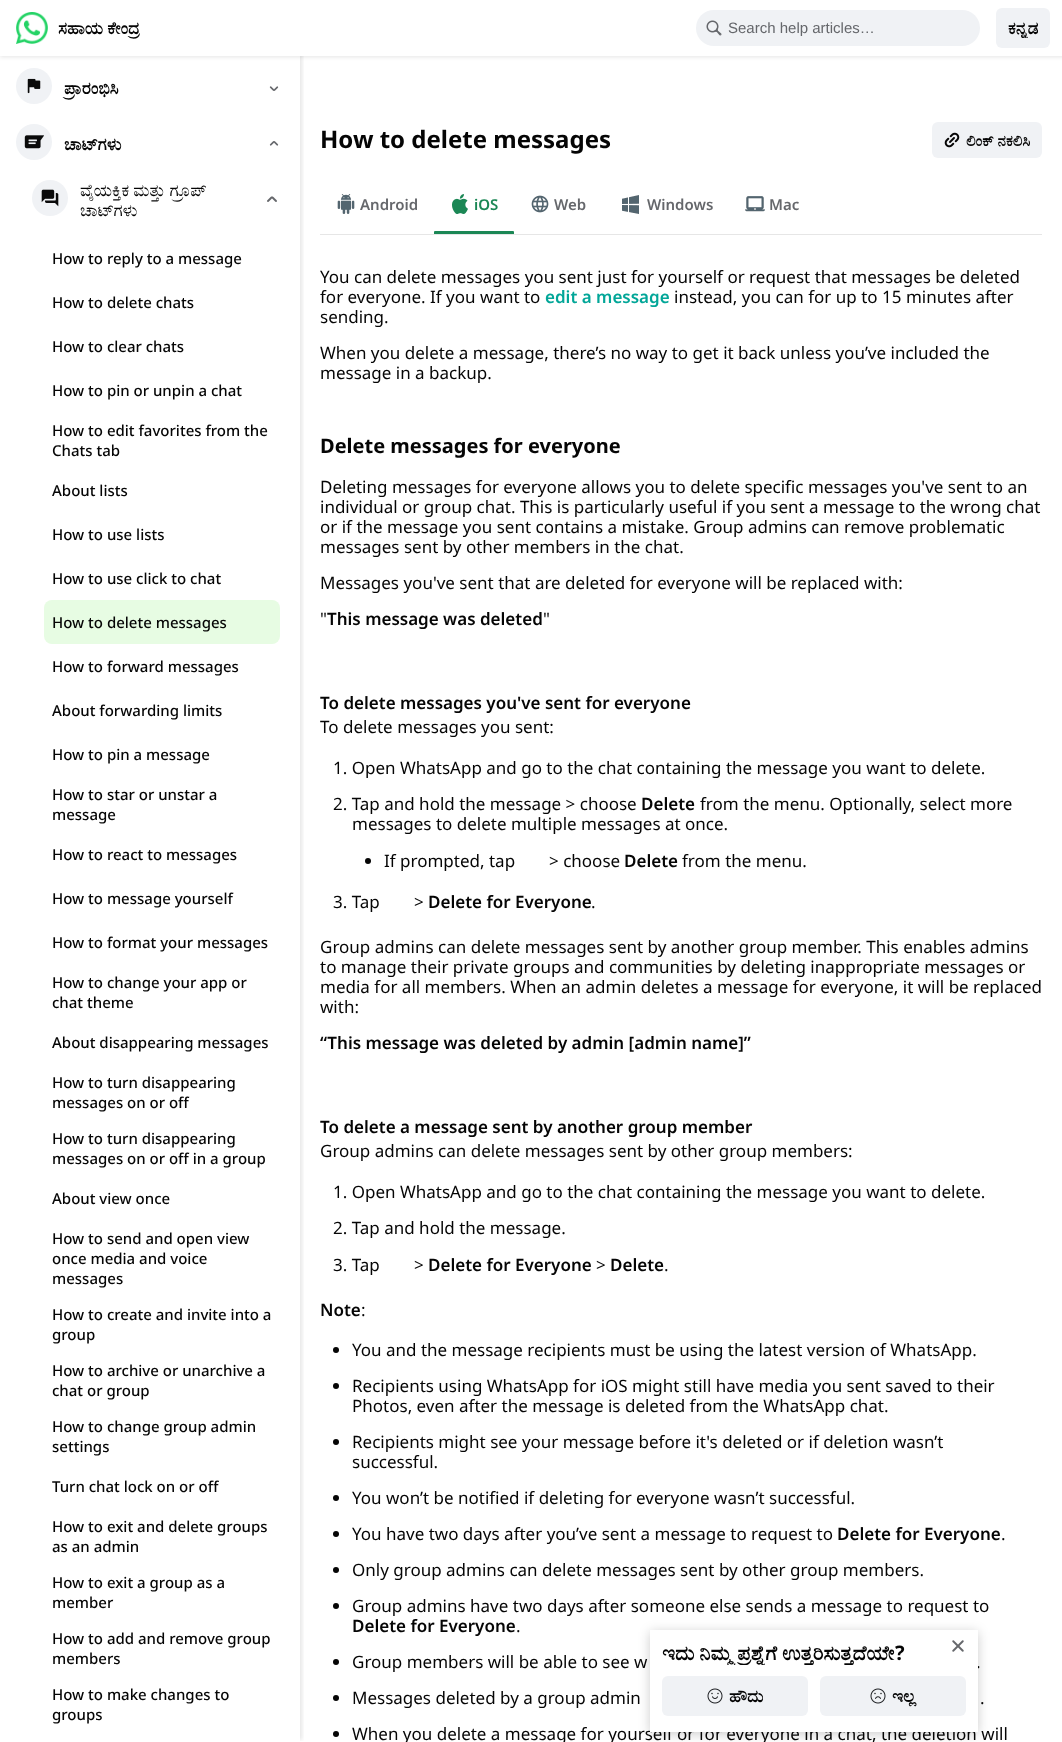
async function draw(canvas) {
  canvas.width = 1062
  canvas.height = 1742
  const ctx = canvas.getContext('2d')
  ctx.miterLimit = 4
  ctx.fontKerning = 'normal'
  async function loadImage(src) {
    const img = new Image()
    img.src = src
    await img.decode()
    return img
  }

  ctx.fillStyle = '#fff'
  ctx.fillRect(0, 0, 1062, 1742)
  ctx.fillStyle = '#0000001a'
  ctx.filter = 'blur(2px)'
  ctx.beginPath()
  ctx.rect(0, 1, 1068, 56)
  ctx.fill()
  ctx.filter = 'none'
  ctx.save()
  ctx.beginPath()
  ctx.rect(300, 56, 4, 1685)
  ctx.clip()
  ctx.filter = 'blur(2px)'
  ctx.beginPath()
  ctx.rect(6, 2, 296, 1738)
  ctx.fill()
  ctx.filter = 'none'
  ctx.restore()
  ctx.fillStyle = '#fff'
  ctx.fillRect(0, 0, 1062, 56)
  ctx.drawImage(await loadImage('image0.png'), 16, 12, 32, 32)
  ctx.font = 'bold 17px FreeSerif'
  ctx.fillStyle = '#050505'
  ctx.fillText('ಸಹಾಯ ಕೇಂದ್ರ', 58, 34)
  ctx.fillStyle = '#f0f2f5'
  ctx.beginPath()
  ctx.roundRect(696, 10, 284, 36, 18)
  ctx.fill()
  ctx.drawImage(await loadImage('image1.png'), 706, 20, 16, 16)
  ctx.font = '15px Liberation Sans'
  ctx.fillStyle = '#65676b'
  ctx.fillText('Search help articles…', 728, 33)
  ctx.fillStyle = '#f0f2f5'
  ctx.beginPath()
  ctx.roundRect(996, 8, 54, 40, 6)
  ctx.fill()
  ctx.save()
  ctx.beginPath()
  ctx.rect(1008, 18, 30, 20)
  ctx.clip()
  ctx.font = 'bold 17px FreeSerif'
  ctx.fillStyle = '#050505'
  ctx.fillText('ಕನ್ನಡ', 1008, 34)
  ctx.restore()
  ctx.beginPath()
  ctx.arc(34, 86, 18, 0, 2 * Math.PI)
  ctx.fill()
  ctx.drawImage(await loadImage('image2.png'), 27, 78, 14, 16)
  ctx.font = 'bold 17px FreeSerif'
  ctx.fillStyle = '#050505'
  ctx.fillText('ಪ್ರಾರಂಭಿಸಿ', 64, 94)
  ctx.drawImage(await loadImage('image3.png'), 269, 86, 10, 5)
  ctx.fillStyle = '#f0f2f5'
  ctx.beginPath()
  ctx.arc(34, 142, 18, 0, 2 * Math.PI)
  ctx.fill()
  ctx.drawImage(await loadImage('image4.png'), 24, 135, 20, 14)
  ctx.fillStyle = '#050505'
  ctx.fillText('ಚಾಟ್‍‌ಗಳು', 64, 150)
  ctx.drawImage(await loadImage('image5.png'), 269, 141, 10, 5)
  ctx.fillStyle = '#f0f2f5'
  ctx.beginPath()
  ctx.arc(50, 198, 18, 0, 2 * Math.PI)
  ctx.fill()
  ctx.drawImage(await loadImage('image6.png'), 41, 189, 18, 18)
  ctx.font = '17px FreeSerif'
  ctx.fillStyle = '#050505'
  ctx.fillText('ವೈಯಕ್ತಿಕ ಮತ್ತು ಗ್ರೂಪ್', 80, 196)
  ctx.fillText('ಚಾಟ್‌ಗಳು', 80, 216)
  ctx.drawImage(await loadImage('image7.png'), 267, 196, 10, 6)
  ctx.font = '500 15px Noto Sans'
  ctx.fillText('How to reply to a message', 52, 264)
  ctx.fillText('How to delete chats', 52, 308)
  ctx.fillText('How to clear chats', 52, 352)
  ctx.fillText('How to pin or unpin a chat', 52, 396)
  ctx.fillText('How to edit favorites from the', 52, 436)
  ctx.fillText('Chats tab', 52, 456)
  ctx.fillText('About lists', 52, 496)
  ctx.fillText('How to use lists', 52, 540)
  ctx.fillText('How to use click to chat', 52, 584)
  ctx.fillStyle = '#e7fce3'
  ctx.beginPath()
  ctx.roundRect(44, 600, 236, 44, 8)
  ctx.fill()
  ctx.fillStyle = '#050505'
  ctx.fillText('How to delete messages', 52, 628)
  ctx.fillText('How to forward messages', 52, 672)
  ctx.fillText('About forwarding limits', 52, 716)
  ctx.fillText('How to pin a message', 52, 760)
  ctx.fillText('How to star or unstar a', 52, 800)
  ctx.fillText('message', 52, 820)
  ctx.fillText('How to react to messages', 52, 860)
  ctx.fillText('How to message yourself', 52, 904)
  ctx.fillText('How to format your messages', 52, 948)
  ctx.fillText('How to change your app or', 52, 988)
  ctx.fillText('chat theme', 52, 1008)
  ctx.fillText('About disappearing messages', 52, 1048)
  ctx.fillText('How to turn disappearing', 52, 1088)
  ctx.fillText('messages on or off', 52, 1108)
  ctx.fillText('How to turn disappearing', 52, 1144)
  ctx.fillText('messages on or off in a group', 52, 1164)
  ctx.fillText('About view once', 52, 1204)
  ctx.fillText('How to send and open view', 52, 1244)
  ctx.fillText('once media and voice', 52, 1264)
  ctx.fillText('messages', 52, 1284)
  ctx.fillText('How to create and invite into a', 52, 1320)
  ctx.fillText('group', 52, 1340)
  ctx.fillText('How to archive or unarchive a', 52, 1376)
  ctx.fillText('chat or group', 52, 1396)
  ctx.fillText('How to change group admin', 52, 1432)
  ctx.fillText('settings', 52, 1452)
  ctx.fillText('Turn chat lock on or off', 52, 1492)
  ctx.fillText('How to exit and delete groups', 52, 1532)
  ctx.fillText('as an admin', 52, 1552)
  ctx.fillText('How to exit a group as a', 52, 1588)
  ctx.fillText('member', 52, 1608)
  ctx.fillText('How to add and remove group', 52, 1644)
  ctx.fillText('members', 52, 1664)
  ctx.fillText('How to make changes to', 52, 1700)
  ctx.fillText('groups', 52, 1720)
  ctx.fillStyle = '#e6e6e6'
  ctx.fillRect(320, 234, 722, 1)
  ctx.font = 'bold 24px Noto Sans'
  ctx.fillStyle = '#050505'
  ctx.fillText('How to delete messages', 320, 148)
  ctx.fillStyle = '#f0f2f5'
  ctx.beginPath()
  ctx.roundRect(932, 122, 110, 36, 6)
  ctx.fill()
  ctx.drawImage(await loadImage('image8.png'), 944, 132, 16, 16)
  ctx.font = 'bold 15px FreeSerif'
  ctx.fillStyle = '#050505'
  ctx.fillText('ಲಿಂಕ್ ನಕಲಿಸಿ', 966, 146)
  ctx.drawImage(await loadImage('image9.png'), 337, 194, 18, 20)
  ctx.font = '600 15px Noto Sans'
  ctx.fillStyle = '#65676b'
  ctx.fillText('Android', 360, 210)
  ctx.drawImage(await loadImage('image10.png'), 452, 194, 16, 20)
  ctx.fillStyle = '#1b8755'
  ctx.fillText('iOS', 474, 210)
  ctx.beginPath()
  ctx.roundRect(434, 231, 80, 3, [1, 1, 0, 0])
  ctx.fill()
  ctx.drawImage(await loadImage('image11.png'), 531, 195, 18, 18)
  ctx.fillStyle = '#65676b'
  ctx.fillText('Web', 554, 210)
  ctx.drawImage(await loadImage('image12.png'), 622, 195, 17, 19)
  ctx.fillText('Windows', 647, 210)
  ctx.drawImage(await loadImage('image13.png'), 745, 196, 20, 16)
  ctx.fillText('Mac', 769, 210)
  ctx.font = '17px Noto Sans'
  ctx.fillStyle = '#050505'
  ctx.fillText('You can delete messages you sent just for yourself or request that messages be deleted', 320, 283)
  ctx.fillText('for everyone. If you want to', 320, 303)
  ctx.font = '600 17px Noto Sans'
  ctx.fillStyle = '#02a698'
  ctx.fillText('edit a message', 545, 303)
  ctx.font = '17px Noto Sans'
  ctx.fillStyle = '#050505'
  ctx.fillText('instead, you can for up to 15 minutes after', 674, 303)
  ctx.fillText('sending.', 320, 323)
  ctx.fillText('When you delete a message, there’s no way to get it back unless you’ve included the', 320, 359)
  ctx.fillText('message in a backup.', 320, 379)
  ctx.font = 'bold 20px Noto Sans'
  ctx.fillText('Delete messages for everyone', 320, 453)
  ctx.font = '17px Noto Sans'
  ctx.fillText('Deleting messages for everyone allows you to delete specific messages you\'ve sent to an', 320, 493)
  ctx.fillText('individual or group chat. This is particularly useful if you sent a message to the wrong chat', 320, 513)
  ctx.fillText('or if the message you sent contains a mistake. Group admins can remove problematic', 320, 533)
  ctx.fillText('messages sent by other members in the chat.', 320, 553)
  ctx.fillText('Messages you\'ve sent that are deleted for everyone will be replaced with:', 320, 589)
  ctx.fillText('"', 320, 625)
  ctx.font = '600 17px Noto Sans'
  ctx.fillText('This message was deleted', 327, 625)
  ctx.font = '17px Noto Sans'
  ctx.fillText('"', 543, 625)
  ctx.font = '600 17px Noto Sans'
  ctx.fillText('To delete messages you\'ve sent for everyone', 320, 709)
  ctx.font = '17px Noto Sans'
  ctx.fillText('To delete messages you sent:', 320, 733)
  ctx.fillText('1. Open WhatsApp and go to the chat containing the message you want to delete.', 333, 774)
  ctx.fillText('2. Tap and hold the message > choose', 333, 810)
  ctx.font = '600 17px Noto Sans'
  ctx.fillText('Delete', 641, 810)
  ctx.font = '17px Noto Sans'
  ctx.fillText('from the menu. Optionally, select more', 700, 810)
  ctx.fillText('messages to delete multiple messages at once.', 352, 830)
  ctx.beginPath()
  ctx.arc(368, 861, 3, 0, 2 * Math.PI)
  ctx.fill()
  ctx.fillText('If prompted, tap', 384, 867)
  ctx.fillText('> choose', 549, 867)
  ctx.font = '600 17px Noto Sans'
  ctx.fillText('Delete', 624, 867)
  ctx.font = '17px Noto Sans'
  ctx.fillText('from the menu.', 682, 867)
  ctx.fillText('3. Tap', 333, 908)
  ctx.fillText('>', 414, 908)
  ctx.font = '600 17px Noto Sans'
  ctx.fillText('Delete for Everyone', 428, 908)
  ctx.font = '17px Noto Sans'
  ctx.fillText('.', 591, 908)
  ctx.fillText('Group admins can delete messages sent by another group member. This enables admins', 320, 953)
  ctx.fillText('to manage their private groups and communities by deleting inappropriate messages or', 320, 973)
  ctx.fillText('media for all members. When an admin deletes a message for everyone, it will be replaced', 320, 993)
  ctx.fillText('with:', 320, 1013)
  ctx.font = '600 17px Noto Sans'
  ctx.fillText('“This message was deleted by admin [admin name]”', 320, 1049)
  ctx.fillText('To delete a message sent by another group member', 320, 1133)
  ctx.font = '17px Noto Sans'
  ctx.fillText('Group admins can delete messages sent by other group members:', 320, 1157)
  ctx.fillText('1. Open WhatsApp and go to the chat containing the message you want to delete.', 333, 1198)
  ctx.fillText('2. Tap and hold the message.', 333, 1234)
  ctx.fillText('3. Tap', 333, 1271)
  ctx.fillText('>', 414, 1271)
  ctx.font = '600 17px Noto Sans'
  ctx.fillText('Delete for Everyone', 428, 1271)
  ctx.font = '17px Noto Sans'
  ctx.fillText('>', 596, 1271)
  ctx.font = '600 17px Noto Sans'
  ctx.fillText('Delete', 610, 1271)
  ctx.font = '17px Noto Sans'
  ctx.fillText('.', 664, 1271)
  ctx.font = '600 17px Noto Sans'
  ctx.fillText('Note', 320, 1316)
  ctx.font = '17px Noto Sans'
  ctx.fillText(':', 361, 1316)
  ctx.beginPath()
  ctx.arc(336, 1350, 3, 0, 2 * Math.PI)
  ctx.fill()
  ctx.fillText('You and the message recipients must be using the latest version of WhatsApp.', 352, 1356)
  ctx.beginPath()
  ctx.arc(336, 1386, 3, 0, 2 * Math.PI)
  ctx.fill()
  ctx.fillText('Recipients using WhatsApp for iOS might still have media you sent saved to their', 352, 1392)
  ctx.fillText('Photos, even after the message is deleted from the WhatsApp chat.', 352, 1412)
  ctx.beginPath()
  ctx.arc(336, 1442, 3, 0, 2 * Math.PI)
  ctx.fill()
  ctx.fillText('Recipients might see your message before it\'s deleted or if deletion wasn’t', 352, 1448)
  ctx.fillText('successful.', 352, 1468)
  ctx.beginPath()
  ctx.arc(336, 1498, 3, 0, 2 * Math.PI)
  ctx.fill()
  ctx.fillText('You won’t be notified if deleting for everyone wasn’t successful.', 352, 1504)
  ctx.beginPath()
  ctx.arc(336, 1534, 3, 0, 2 * Math.PI)
  ctx.fill()
  ctx.fillText('You have two days after you’ve sent a message to request to', 352, 1540)
  ctx.font = '600 17px Noto Sans'
  ctx.fillText('Delete for Everyone', 837, 1540)
  ctx.font = '17px Noto Sans'
  ctx.fillText('.', 1001, 1540)
  ctx.beginPath()
  ctx.arc(336, 1570, 3, 0, 2 * Math.PI)
  ctx.fill()
  ctx.fillText('Only group admins can delete messages sent by other group members.', 352, 1576)
  ctx.beginPath()
  ctx.arc(336, 1606, 3, 0, 2 * Math.PI)
  ctx.fill()
  ctx.fillText('Group admins have two days after someone else sends a message to request to', 352, 1612)
  ctx.font = '600 17px Noto Sans'
  ctx.fillText('Delete for Everyone', 352, 1632)
  ctx.font = '17px Noto Sans'
  ctx.fillText('.', 516, 1632)
  ctx.beginPath()
  ctx.arc(336, 1662, 3, 0, 2 * Math.PI)
  ctx.fill()
  ctx.fillText('Group members will be able to see w', 352, 1668)
  ctx.fillText('.', 976, 1668)
  ctx.beginPath()
  ctx.arc(336, 1698, 3, 0, 2 * Math.PI)
  ctx.fill()
  ctx.fillText('Messages deleted by a group admin', 352, 1704)
  ctx.fillText('.', 980, 1704)
  ctx.beginPath()
  ctx.arc(336, 1734, 3, 0, 2 * Math.PI)
  ctx.fill()
  ctx.fillText('When you delete a message for yourself or for everyone in a chat, the deletion will', 352, 1740)
  ctx.fillStyle = '#00000033'
  ctx.filter = 'blur(6px)'
  ctx.beginPath()
  ctx.rect(650, 1632, 328, 102)
  ctx.fill()
  ctx.filter = 'none'
  ctx.fillStyle = '#fff'
  ctx.fillRect(650, 1630, 328, 102)
  ctx.save()
  ctx.beginPath()
  ctx.rect(662, 1641, 276, 24)
  ctx.clip()
  ctx.font = 'bold 20px FreeSerif'
  ctx.fillStyle = '#050505'
  ctx.fillText('ಇದು ನಿಮ್ಮ ಪ್ರಶ್ನೆಗೆ ಉತ್ತರಿಸುತ್ತದೆಯೇ', 662, 1660)
  ctx.restore()
  ctx.font = 'bold 20px Noto Sans'
  ctx.fillStyle = '#050505'
  ctx.fillText('?', 895, 1660)
  ctx.drawImage(await loadImage('image14.png'), 952, 1640, 12, 12)
  ctx.fillStyle = '#f0f2f5'
  ctx.beginPath()
  ctx.roundRect(662, 1676, 146, 40, 6)
  ctx.fill()
  ctx.drawImage(await loadImage('image15.png'), 707, 1688, 16, 16)
  ctx.save()
  ctx.beginPath()
  ctx.rect(729, 1686, 34, 20)
  ctx.clip()
  ctx.font = 'bold 17px FreeSerif'
  ctx.fillStyle = '#050505'
  ctx.fillText('ಹೌದು', 729, 1702)
  ctx.restore()
  ctx.beginPath()
  ctx.roundRect(820, 1676, 146, 40, 6)
  ctx.fill()
  ctx.drawImage(await loadImage('image16.png'), 870, 1688, 16, 16)
  ctx.font = 'bold 17px FreeSerif'
  ctx.fillStyle = '#050505'
  ctx.fillText('ಇಲ್ಲ', 892, 1702)
}

draw(document.querySelector('canvas'))
